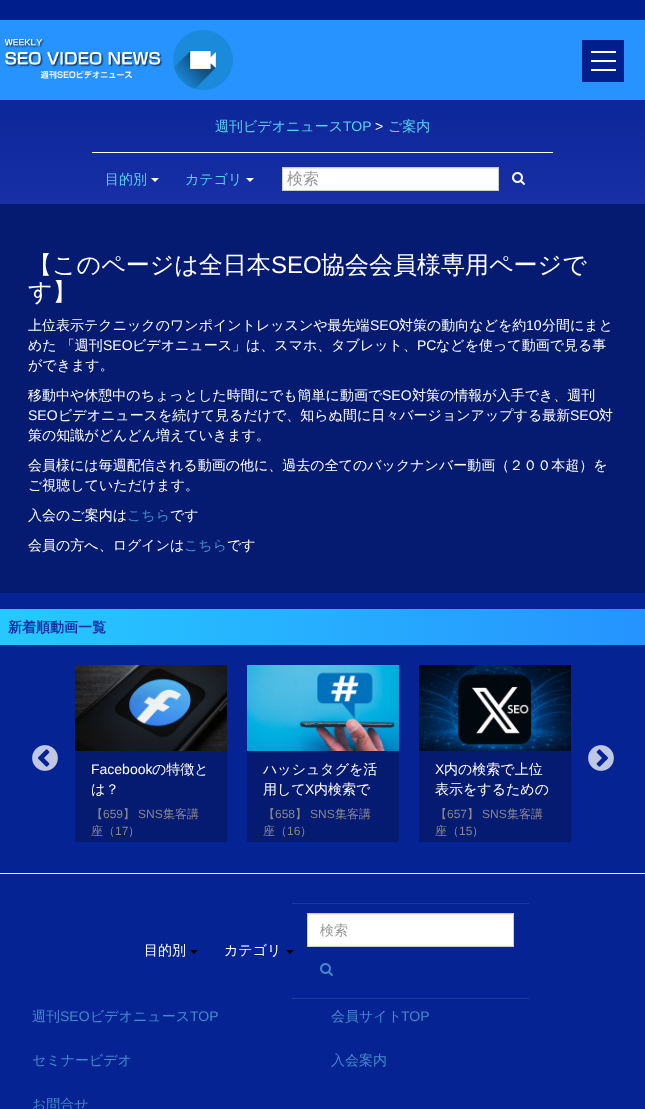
async function draw(canvas) {
  canvas.width = 645
  canvas.height = 1109
  const ctx = canvas.getContext('2d')
  ctx.miterLimit = 4
  ctx.fontKerning = 'normal'
  async function loadImage(src) {
    const img = new Image()
    img.src = src
    await img.decode()
    return img
  }
  let gradient

  ctx.fillStyle = '#062393'
  ctx.fillRect(0, 0, 645, 1109)
  ctx.fillStyle = '#001f8d'
  ctx.fillRect(0, 0, 645, 20)
  ctx.fillStyle = '#2693ff'
  ctx.fillRect(0, 20, 645, 80)
  ctx.drawImage(await loadImage('image0.png'), 4, 39, 159, 40)
  ctx.drawImage(await loadImage('image1.png'), 173, 30, 60, 60)
  ctx.fillStyle = '#001f8d'
  ctx.fillRect(582, 40, 42, 42)
  ctx.fillStyle = '#fff'
  ctx.fillRect(591, 51, 25, 2)
  ctx.fillRect(591, 60, 25, 2)
  ctx.fillRect(591, 69, 25, 2)
  gradient = ctx.createLinearGradient(323, 100, 323, 204)
  gradient.addColorStop(0, '#0c279a')
  gradient.addColorStop(1, '#182fa6')
  ctx.fillStyle = gradient
  ctx.fillRect(0, 100, 645, 104)
  ctx.font = '500 14px WenQuanYi Zen Hei'
  ctx.fillStyle = '#56d1ef'
  ctx.fillText('週刊ビデオニュース', 215, 131)
  ctx.font = '14px Liberation Sans'
  ctx.fillText('TOP', 343, 131)
  ctx.fillStyle = '#fff'
  ctx.fillText('>', 375, 131)
  ctx.font = '500 14px WenQuanYi Zen Hei'
  ctx.fillStyle = '#56d1ef'
  ctx.fillText('ご案内', 388, 131)
  ctx.fillStyle = '#fff'
  ctx.fillRect(92, 152, 461, 1)
  ctx.fillStyle = '#56d1ef'
  ctx.fillText('目的別', 105, 184)
  ctx.fillStyle = '#fff'
  ctx.beginPath()
  ctx.moveTo(151, 178)
  ctx.lineTo(159, 178)
  ctx.lineTo(155, 182)
  ctx.closePath()
  ctx.fill()
  ctx.fillStyle = '#56d1ef'
  ctx.fillText('カテゴリ', 185, 184)
  ctx.fillStyle = '#fff'
  ctx.beginPath()
  ctx.moveTo(246, 178)
  ctx.lineTo(254, 178)
  ctx.lineTo(250, 182)
  ctx.closePath()
  ctx.fill()
  ctx.fillRect(283, 169, 215, 21)
  ctx.fillStyle = '#ececec'
  ctx.fillRect(283, 168, 215, 1)
  ctx.strokeStyle = '#ccc'
  ctx.strokeRect(282.5, 167.5, 216, 23)
  ctx.font = '500 16px WenQuanYi Zen Hei'
  ctx.fillStyle = '#999'
  ctx.fillText('検索', 287, 184)
  ctx.drawImage(await loadImage('image2.png'), 512, 172, 13, 13)
  ctx.fillStyle = '#051b71'
  ctx.fillRect(0, 204, 645, 389)
  ctx.font = '500 24px WenQuanYi Zen Hei'
  ctx.fillStyle = '#fff'
  ctx.fillText('【このページは全日本', 28, 273)
  ctx.font = '24px Liberation Sans'
  ctx.fillText('SEO', 271, 273)
  ctx.font = '500 24px WenQuanYi Zen Hei'
  ctx.fillText('協会会員様専用ページで', 321, 273)
  ctx.fillText('す】', 28, 300)
  ctx.font = '500 14px WenQuanYi Zen Hei'
  ctx.fillText('上位表示テクニックのワンポイントレッスンや最先端', 28, 330)
  ctx.font = '14px Liberation Sans'
  ctx.fillText('SEO', 370, 330)
  ctx.font = '500 14px WenQuanYi Zen Hei'
  ctx.fillText('対策の動向などを約', 399, 330)
  ctx.font = '14px Liberation Sans'
  ctx.fillText('10', 526, 330)
  ctx.font = '500 14px WenQuanYi Zen Hei'
  ctx.fillText('分間にまと', 542, 330)
  ctx.fillText('めた 「週刊', 28, 350)
  ctx.font = '14px Liberation Sans'
  ctx.fillText('SEO', 103, 350)
  ctx.font = '500 14px WenQuanYi Zen Hei'
  ctx.fillText('ビデオニュース」は、スマホ、タブレット、', 132, 350)
  ctx.font = '14px Liberation Sans'
  ctx.fillText('PC', 417, 350)
  ctx.font = '500 14px WenQuanYi Zen Hei'
  ctx.fillText('などを使って動画で見る事', 436, 350)
  ctx.fillText('ができます。', 28, 370)
  ctx.fillText('移動中や休憩中のちょっとした時間にでも簡単に動画で', 28, 400)
  ctx.font = '14px Liberation Sans'
  ctx.fillText('SEO', 382, 400)
  ctx.font = '500 14px WenQuanYi Zen Hei'
  ctx.fillText('対策の情報が入手でき、週刊', 412, 400)
  ctx.font = '14px Liberation Sans'
  ctx.fillText('SEO', 28, 420)
  ctx.font = '500 14px WenQuanYi Zen Hei'
  ctx.fillText('ビデオニュースを続けて見るだけで、知らぬ間に日々バージョンアップする最新', 58, 420)
  ctx.font = '14px Liberation Sans'
  ctx.fillText('SEO', 570, 420)
  ctx.font = '500 14px WenQuanYi Zen Hei'
  ctx.fillText('対', 599, 420)
  ctx.fillText('策の知識がどんどん増えていきます。', 28, 440)
  ctx.fillText('会員様には毎週配信される動画の他に、過去の全てのバックナンバー動画（２００本超）を', 28, 470)
  ctx.fillText('ご視聴していただけます。', 28, 490)
  ctx.fillText('入会のご案内は', 28, 520)
  ctx.fillStyle = '#428bca'
  ctx.fillText('こちら', 127, 520)
  ctx.fillStyle = '#fff'
  ctx.fillText('です', 170, 520)
  ctx.fillText('会員の方へ、ログインは', 28, 550)
  ctx.fillStyle = '#428bca'
  ctx.fillText('こちら', 184, 550)
  ctx.fillStyle = '#fff'
  ctx.fillText('です', 227, 550)
  gradient = ctx.createLinearGradient(645, 627, 0, 627)
  gradient.addColorStop(0, '#2693ff')
  gradient.addColorStop(1, '#26c9ff')
  ctx.fillStyle = gradient
  ctx.fillRect(0, 609, 645, 36)
  ctx.font = 'bold 14px WenQuanYi Zen Hei'
  ctx.fillStyle = '#132ca1'
  ctx.fillText('新着順動画一覧', 8, 632)
  ctx.drawImage(await loadImage('image3.png'), 32, 745, 26, 26)
  ctx.drawImage(await loadImage('image4.png'), 588, 745, 26, 26)
  ctx.fillStyle = '#051b71'
  ctx.fillRect(75, 751, 152, 91)
  ctx.drawImage(await loadImage('image5.png'), 75, 665, 152, 86)
  ctx.font = '14px Liberation Sans'
  ctx.fillStyle = '#fff'
  ctx.fillText('Facebook', 91, 774)
  ctx.font = '500 14px WenQuanYi Zen Hei'
  ctx.fillText('の特徴と', 152, 774)
  ctx.fillText('は？', 91, 794)
  ctx.font = '500 12px WenQuanYi Zen Hei'
  ctx.fillStyle = '#888'
  ctx.fillText('【', 91, 818)
  ctx.font = '12px Liberation Sans'
  ctx.fillText('659', 103, 818)
  ctx.font = '500 12px WenQuanYi Zen Hei'
  ctx.fillText('】', 123, 818)
  ctx.font = '12px Liberation Sans'
  ctx.fillText('SNS', 138, 818)
  ctx.font = '500 12px WenQuanYi Zen Hei'
  ctx.fillText('集客講', 163, 818)
  ctx.fillText('座（', 91, 835)
  ctx.font = '12px Liberation Sans'
  ctx.fillText('17', 115, 835)
  ctx.font = '500 12px WenQuanYi Zen Hei'
  ctx.fillText('）', 128, 835)
  ctx.fillStyle = '#051b71'
  ctx.fillRect(247, 751, 152, 91)
  ctx.drawImage(await loadImage('image6.png'), 247, 665, 152, 86)
  ctx.font = '500 14px WenQuanYi Zen Hei'
  ctx.fillStyle = '#fff'
  ctx.fillText('ハッシュタグを活', 263, 774)
  ctx.fillText('用して', 263, 794)
  ctx.font = '14px Liberation Sans'
  ctx.fillText('X', 305, 794)
  ctx.font = '500 14px WenQuanYi Zen Hei'
  ctx.fillText('内検索で', 314, 794)
  ctx.font = '500 12px WenQuanYi Zen Hei'
  ctx.fillStyle = '#888'
  ctx.fillText('【', 263, 818)
  ctx.font = '12px Liberation Sans'
  ctx.fillText('658', 275, 818)
  ctx.font = '500 12px WenQuanYi Zen Hei'
  ctx.fillText('】', 295, 818)
  ctx.font = '12px Liberation Sans'
  ctx.fillText('SNS', 310, 818)
  ctx.font = '500 12px WenQuanYi Zen Hei'
  ctx.fillText('集客講', 335, 818)
  ctx.fillText('座（', 263, 835)
  ctx.font = '12px Liberation Sans'
  ctx.fillText('16', 287, 835)
  ctx.font = '500 12px WenQuanYi Zen Hei'
  ctx.fillText('）', 300, 835)
  ctx.fillStyle = '#051b71'
  ctx.fillRect(419, 751, 152, 91)
  ctx.drawImage(await loadImage('image7.png'), 419, 665, 152, 86)
  ctx.font = '14px Liberation Sans'
  ctx.fillStyle = '#fff'
  ctx.fillText('X', 435, 774)
  ctx.font = '500 14px WenQuanYi Zen Hei'
  ctx.fillText('内の検索で上位', 444, 774)
  ctx.fillText('表示をするための', 435, 794)
  ctx.font = '500 12px WenQuanYi Zen Hei'
  ctx.fillStyle = '#888'
  ctx.fillText('【', 435, 818)
  ctx.font = '12px Liberation Sans'
  ctx.fillText('657', 447, 818)
  ctx.font = '500 12px WenQuanYi Zen Hei'
  ctx.fillText('】', 467, 818)
  ctx.font = '12px Liberation Sans'
  ctx.fillText('SNS', 482, 818)
  ctx.font = '500 12px WenQuanYi Zen Hei'
  ctx.fillText('集客講', 507, 818)
  ctx.fillText('座（', 435, 835)
  ctx.font = '12px Liberation Sans'
  ctx.fillText('15', 459, 835)
  ctx.font = '500 12px WenQuanYi Zen Hei'
  ctx.fillText('）', 472, 835)
  ctx.fillStyle = '#eee'
  ctx.fillRect(0, 873, 645, 1)
  ctx.fillStyle = '#1f399e'
  ctx.fillRect(292, 998, 237, 1)
  ctx.fillRect(292, 903, 237, 1)
  ctx.fillStyle = '#fff'
  ctx.fillRect(308, 915, 205, 31)
  ctx.fillStyle = '#ececec'
  ctx.fillRect(308, 914, 205, 1)
  ctx.strokeRect(307.5, 913.5, 206, 33)
  ctx.font = '500 14px WenQuanYi Zen Hei'
  ctx.fillStyle = '#999'
  ctx.fillText('検索', 320, 935)
  ctx.drawImage(await loadImage('image8.png'), 320, 963, 13, 13)
  ctx.fillStyle = '#fff'
  ctx.fillText('目的別', 144, 955)
  ctx.fillStyle = '#000'
  ctx.beginPath()
  ctx.moveTo(190, 950)
  ctx.lineTo(198, 950)
  ctx.lineTo(194, 954)
  ctx.closePath()
  ctx.fill()
  ctx.fillStyle = '#fff'
  ctx.fillText('カテゴリ', 224, 955)
  ctx.fillStyle = '#000'
  ctx.beginPath()
  ctx.moveTo(286, 950)
  ctx.lineTo(294, 950)
  ctx.lineTo(290, 954)
  ctx.closePath()
  ctx.fill()
  ctx.fillStyle = '#428bca'
  ctx.fillText('週刊', 32, 1021)
  ctx.font = '14px Liberation Sans'
  ctx.fillText('SEO', 60, 1021)
  ctx.font = '500 14px WenQuanYi Zen Hei'
  ctx.fillText('ビデオニュース', 90, 1021)
  ctx.font = '14px Liberation Sans'
  ctx.fillText('TOP', 190, 1021)
  ctx.font = '500 14px WenQuanYi Zen Hei'
  ctx.fillText('会員サイト', 331, 1021)
  ctx.font = '14px Liberation Sans'
  ctx.fillText('TOP', 401, 1021)
  ctx.font = '500 14px WenQuanYi Zen Hei'
  ctx.fillText('セミナービデオ', 32, 1065)
  ctx.fillText('入会案内', 331, 1065)
  ctx.fillText('お問合せ', 32, 1109)
}

draw(document.querySelector('canvas'))
